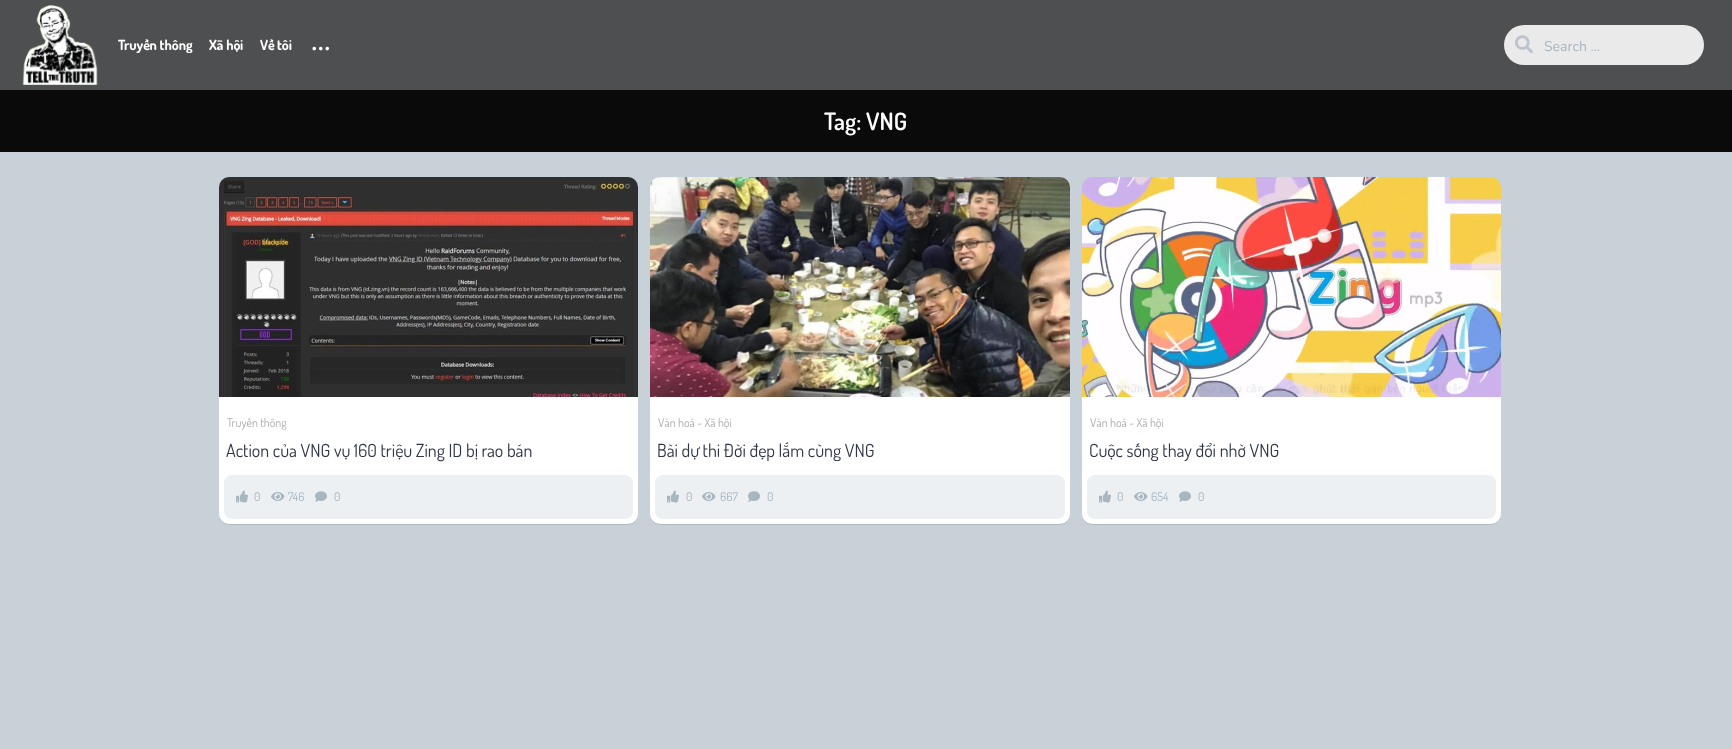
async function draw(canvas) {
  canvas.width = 1732
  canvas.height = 749
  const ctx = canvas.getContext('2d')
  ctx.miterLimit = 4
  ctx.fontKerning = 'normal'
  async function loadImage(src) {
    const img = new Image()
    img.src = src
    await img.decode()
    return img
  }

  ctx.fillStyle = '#c8d1d8'
  ctx.fillRect(0, 0, 1732, 749)
  ctx.fillStyle = '#4e4f51'
  ctx.fillRect(0, 0, 1732, 90)
  ctx.drawImage(await loadImage('image0.png'), 22, 5, 76, 80)
  ctx.font = 'bold 14px Dosis'
  ctx.fillStyle = '#fff'
  ctx.fillText('Truyền thông', 118, 50)
  ctx.fillText('Xã hội', 209, 50)
  ctx.fillText('Về tôi', 260, 50)
  ctx.font = '38px Dosis'
  ctx.fillText('...', 311, 50)
  ctx.fillStyle = '#eaeaea'
  ctx.beginPath()
  ctx.roundRect(1504, 25, 200, 40, 20)
  ctx.fill()
  ctx.drawImage(await loadImage('image1.png'), 1515, 35, 18, 19)
  ctx.font = '14px Nunito'
  ctx.fillStyle = '#a8b6c0'
  ctx.fillText('Search …', 1544, 51)
  ctx.fillStyle = '#0a0a0a'
  ctx.fillRect(0, 90, 1732, 62)
  ctx.font = '600 24px Dosis'
  ctx.fillStyle = '#fff'
  ctx.fillText('Tag: VNG', 824, 130)
  ctx.fillStyle = '#0000001a'
  ctx.filter = 'blur(0.5px)'
  ctx.beginPath()
  ctx.roundRect(219, 178, 419, 347, 10)
  ctx.fill()
  ctx.filter = 'none'
  ctx.fillStyle = '#fff'
  ctx.beginPath()
  ctx.roundRect(219, 177, 419, 347, 10)
  ctx.fill()
  ctx.fillStyle = '#c2c6cb'
  ctx.beginPath()
  ctx.roundRect(219, 177, 419, 220, [10, 10, 0, 0])
  ctx.fill()
  ctx.drawImage(await loadImage('image2.png'), 219, 177, 419, 220)
  ctx.font = '12px Dosis'
  ctx.fillStyle = '#acacac'
  ctx.fillText('Truyền thông', 227, 427)
  ctx.font = '18px Dosis'
  ctx.fillStyle = '#313647'
  ctx.fillText('Action của VNG vụ 160 triệu Zing ID bị rao bán', 226, 457)
  ctx.fillStyle = '#edf0f3'
  ctx.beginPath()
  ctx.roundRect(224, 475, 409, 44, 8)
  ctx.fill()
  ctx.drawImage(await loadImage('image3.png'), 236, 490, 12, 13)
  ctx.font = '12px Dosis'
  ctx.fillStyle = '#a8b6c0'
  ctx.fillText('0', 254, 501)
  ctx.drawImage(await loadImage('image4.png'), 271, 492, 14, 9)
  ctx.fillText('746', 288, 501)
  ctx.drawImage(await loadImage('image5.png'), 315, 491, 12, 11)
  ctx.fillText('0', 334, 501)
  ctx.fillStyle = '#0000001a'
  ctx.filter = 'blur(0.5px)'
  ctx.beginPath()
  ctx.roundRect(650, 178, 420, 347, 10)
  ctx.fill()
  ctx.filter = 'none'
  ctx.fillStyle = '#fff'
  ctx.beginPath()
  ctx.roundRect(650, 177, 420, 347, 10)
  ctx.fill()
  ctx.fillStyle = '#c2c6cb'
  ctx.beginPath()
  ctx.roundRect(650, 177, 420, 220, [10, 10, 0, 0])
  ctx.fill()
  ctx.drawImage(await loadImage('image6.png'), 650, 177, 420, 220)
  ctx.fillStyle = '#acacac'
  ctx.fillText('Văn hoá - Xã hội', 658, 427)
  ctx.save()
  ctx.beginPath()
  ctx.rect(657, 439, 406, 22)
  ctx.clip()
  ctx.font = '18px Dosis'
  ctx.fillStyle = '#313647'
  ctx.fillText('Bài dự thi Đời đẹp lắm cùng VNG', 657, 457)
  ctx.restore()
  ctx.fillStyle = '#edf0f3'
  ctx.beginPath()
  ctx.roundRect(655, 475, 410, 44, 8)
  ctx.fill()
  ctx.drawImage(await loadImage('image3.png'), 667, 490, 12, 13)
  ctx.fillStyle = '#a8b6c0'
  ctx.fillText('0', 686, 501)
  ctx.drawImage(await loadImage('image4.png'), 702, 492, 14, 9)
  ctx.fillText('667', 720, 501)
  ctx.drawImage(await loadImage('image5.png'), 748, 491, 12, 11)
  ctx.fillText('0', 767, 501)
  ctx.fillStyle = '#0000001a'
  ctx.filter = 'blur(0.5px)'
  ctx.beginPath()
  ctx.roundRect(1082, 178, 419, 347, 10)
  ctx.fill()
  ctx.filter = 'none'
  ctx.fillStyle = '#fff'
  ctx.beginPath()
  ctx.roundRect(1082, 177, 419, 347, 10)
  ctx.fill()
  ctx.fillStyle = '#c2c6cb'
  ctx.beginPath()
  ctx.roundRect(1082, 177, 419, 220, [10, 10, 0, 0])
  ctx.fill()
  ctx.drawImage(await loadImage('image7.png'), 1082, 177, 419, 220)
  ctx.fillStyle = '#acacac'
  ctx.fillText('Văn hoá - Xã hội', 1090, 427)
  ctx.save()
  ctx.beginPath()
  ctx.rect(1089, 439, 405, 22)
  ctx.clip()
  ctx.font = '18px Dosis'
  ctx.fillStyle = '#313647'
  ctx.fillText('Cuộc sống thay đổi nhờ VNG', 1089, 457)
  ctx.restore()
  ctx.fillStyle = '#edf0f3'
  ctx.beginPath()
  ctx.roundRect(1087, 475, 409, 44, 8)
  ctx.fill()
  ctx.drawImage(await loadImage('image3.png'), 1099, 490, 12, 13)
  ctx.fillStyle = '#a8b6c0'
  ctx.fillText('0', 1117, 501)
  ctx.drawImage(await loadImage('image4.png'), 1134, 492, 14, 9)
  ctx.fillText('654', 1151, 501)
  ctx.drawImage(await loadImage('image5.png'), 1179, 491, 12, 11)
  ctx.fillText('0', 1198, 501)
}

draw(document.querySelector('canvas'))
